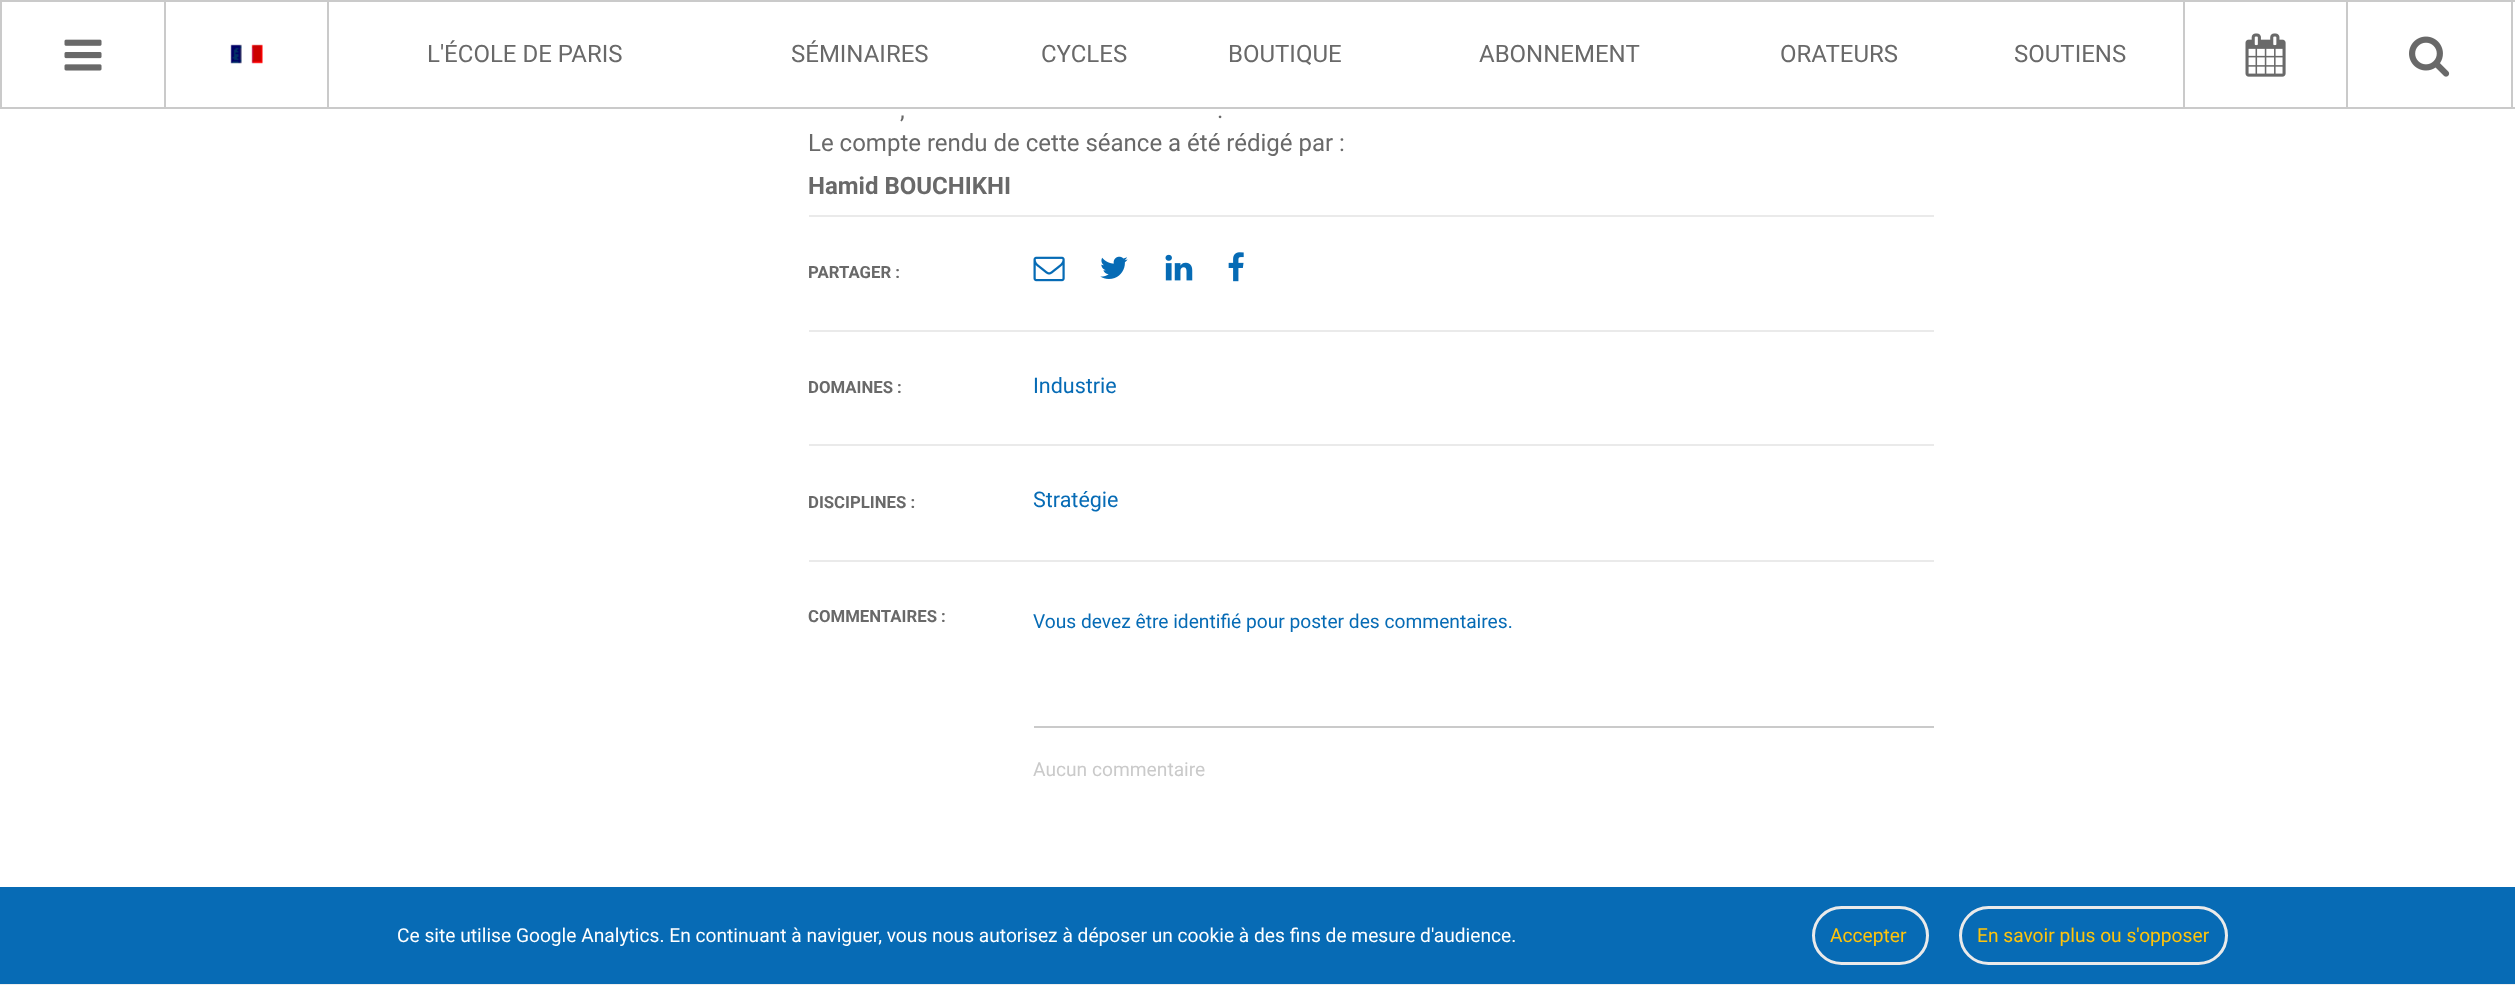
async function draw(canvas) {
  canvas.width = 2515
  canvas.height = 985
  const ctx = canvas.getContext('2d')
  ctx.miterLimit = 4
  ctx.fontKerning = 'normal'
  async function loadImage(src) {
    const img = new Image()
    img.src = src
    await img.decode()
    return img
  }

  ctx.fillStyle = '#fff'
  ctx.fillRect(0, 0, 2515, 985)
  ctx.fillStyle = '#cacaca'
  ctx.fillRect(0, 0, 2515, 2)
  ctx.fillRect(0, 107, 2515, 2)
  ctx.fillRect(164, 2, 2, 105)
  ctx.fillRect(0, 2, 2, 105)
  ctx.drawImage(await loadImage('image0.png'), 64, 39, 38, 32)
  ctx.fillRect(327, 2, 2, 105)
  ctx.drawImage(await loadImage('image1.png'), 230, 44, 33, 20)
  ctx.font = '24px Roboto'
  ctx.fillStyle = '#696969'
  ctx.fillText('L\'ÉCOLE DE PARIS', 427, 62)
  ctx.fillText('SÉMINAIRES', 791, 62)
  ctx.fillText('CYCLES', 1041, 62)
  ctx.fillText('BOUTIQUE', 1228, 62)
  ctx.fillText('ABONNEMENT', 1479, 62)
  ctx.fillText('ORATEURS', 1780, 62)
  ctx.fillText('SOUTIENS', 2014, 62)
  ctx.fillStyle = '#cacaca'
  ctx.fillRect(2346, 2, 2, 105)
  ctx.fillRect(2183, 2, 2, 105)
  ctx.drawImage(await loadImage('image2.png'), 2245, 33, 41, 44)
  ctx.fillRect(2511, 2, 2, 105)
  ctx.drawImage(await loadImage('image3.png'), 2409, 36, 41, 41)
  ctx.fillStyle = '#696969'
  ctx.fillText(',', 900, 118)
  ctx.fillText('.', 1217, 118)
  ctx.fillText('Le compte rendu de cette séance a été rédigé par :', 808, 151)
  ctx.font = 'bold 24px Roboto'
  ctx.fillText('Hamid BOUCHIKHI', 808, 194)
  ctx.fillStyle = '#eaeaea'
  ctx.fillRect(809, 215, 1125, 2)
  ctx.fillRect(809, 330, 1125, 2)
  ctx.font = 'bold 16.75px Roboto'
  ctx.fillStyle = '#696969'
  ctx.fillText('PARTAGER :', 808, 278)
  ctx.drawImage(await loadImage('image4.png'), 1033, 256, 32, 26)
  ctx.drawImage(await loadImage('image5.png'), 1100, 256, 28, 23)
  ctx.drawImage(await loadImage('image6.png'), 1165, 254, 28, 27)
  ctx.drawImage(await loadImage('image7.png'), 1228, 252, 16, 30)
  ctx.fillStyle = '#eaeaea'
  ctx.fillRect(809, 444, 1125, 2)
  ctx.fillStyle = '#696969'
  ctx.fillText('DOMAINES :', 808, 393)
  ctx.font = '21.5px Roboto'
  ctx.fillStyle = '#066bb5'
  ctx.fillText('Industrie', 1033, 393)
  ctx.fillStyle = '#eaeaea'
  ctx.fillRect(809, 560, 1125, 2)
  ctx.font = 'bold 16.75px Roboto'
  ctx.fillStyle = '#696969'
  ctx.fillText('DISCIPLINES :', 808, 508)
  ctx.font = '21.5px Roboto'
  ctx.fillStyle = '#066bb5'
  ctx.fillText('Stratégie', 1033, 507)
  ctx.font = 'bold 16.75px Roboto'
  ctx.fillStyle = '#696969'
  ctx.fillText('COMMENTAIRES :', 808, 622)
  ctx.font = '19.2px Roboto'
  ctx.fillStyle = '#066bb5'
  ctx.fillText('Vous devez être identifié pour poster des commentaires.', 1033, 628)
  ctx.fillStyle = '#cacaca'
  ctx.fillRect(1034, 726, 900, 2)
  ctx.fillText('Aucun commentaire', 1033, 776)
  ctx.fillStyle = '#076bb5'
  ctx.fillRect(0, 887, 2515, 97)
  ctx.fillStyle = '#eee'
  ctx.fillRect(0, 984, 2515, 1)
  ctx.fillStyle = '#fff'
  ctx.fillText('Ce site utilise Google Analytics. En continuant à naviguer, vous nous autorisez à déposer un cookie à des fins de mesure d\'audience.', 397, 942)
  ctx.beginPath()
  ctx.roundRect(1813.5, 907.5, 114, 56, 28)
  ctx.strokeStyle = '#eaeaea'
  ctx.lineWidth = 3
  ctx.stroke()
  ctx.fillStyle = '#ffc40b'
  ctx.fillText('Accepter', 1830, 942)
  ctx.beginPath()
  ctx.roundRect(1960.5, 907.5, 266, 56, 28)
  ctx.stroke()
  ctx.fillText('En savoir plus ou s\'opposer', 1977, 942)
}

draw(document.querySelector('canvas'))
